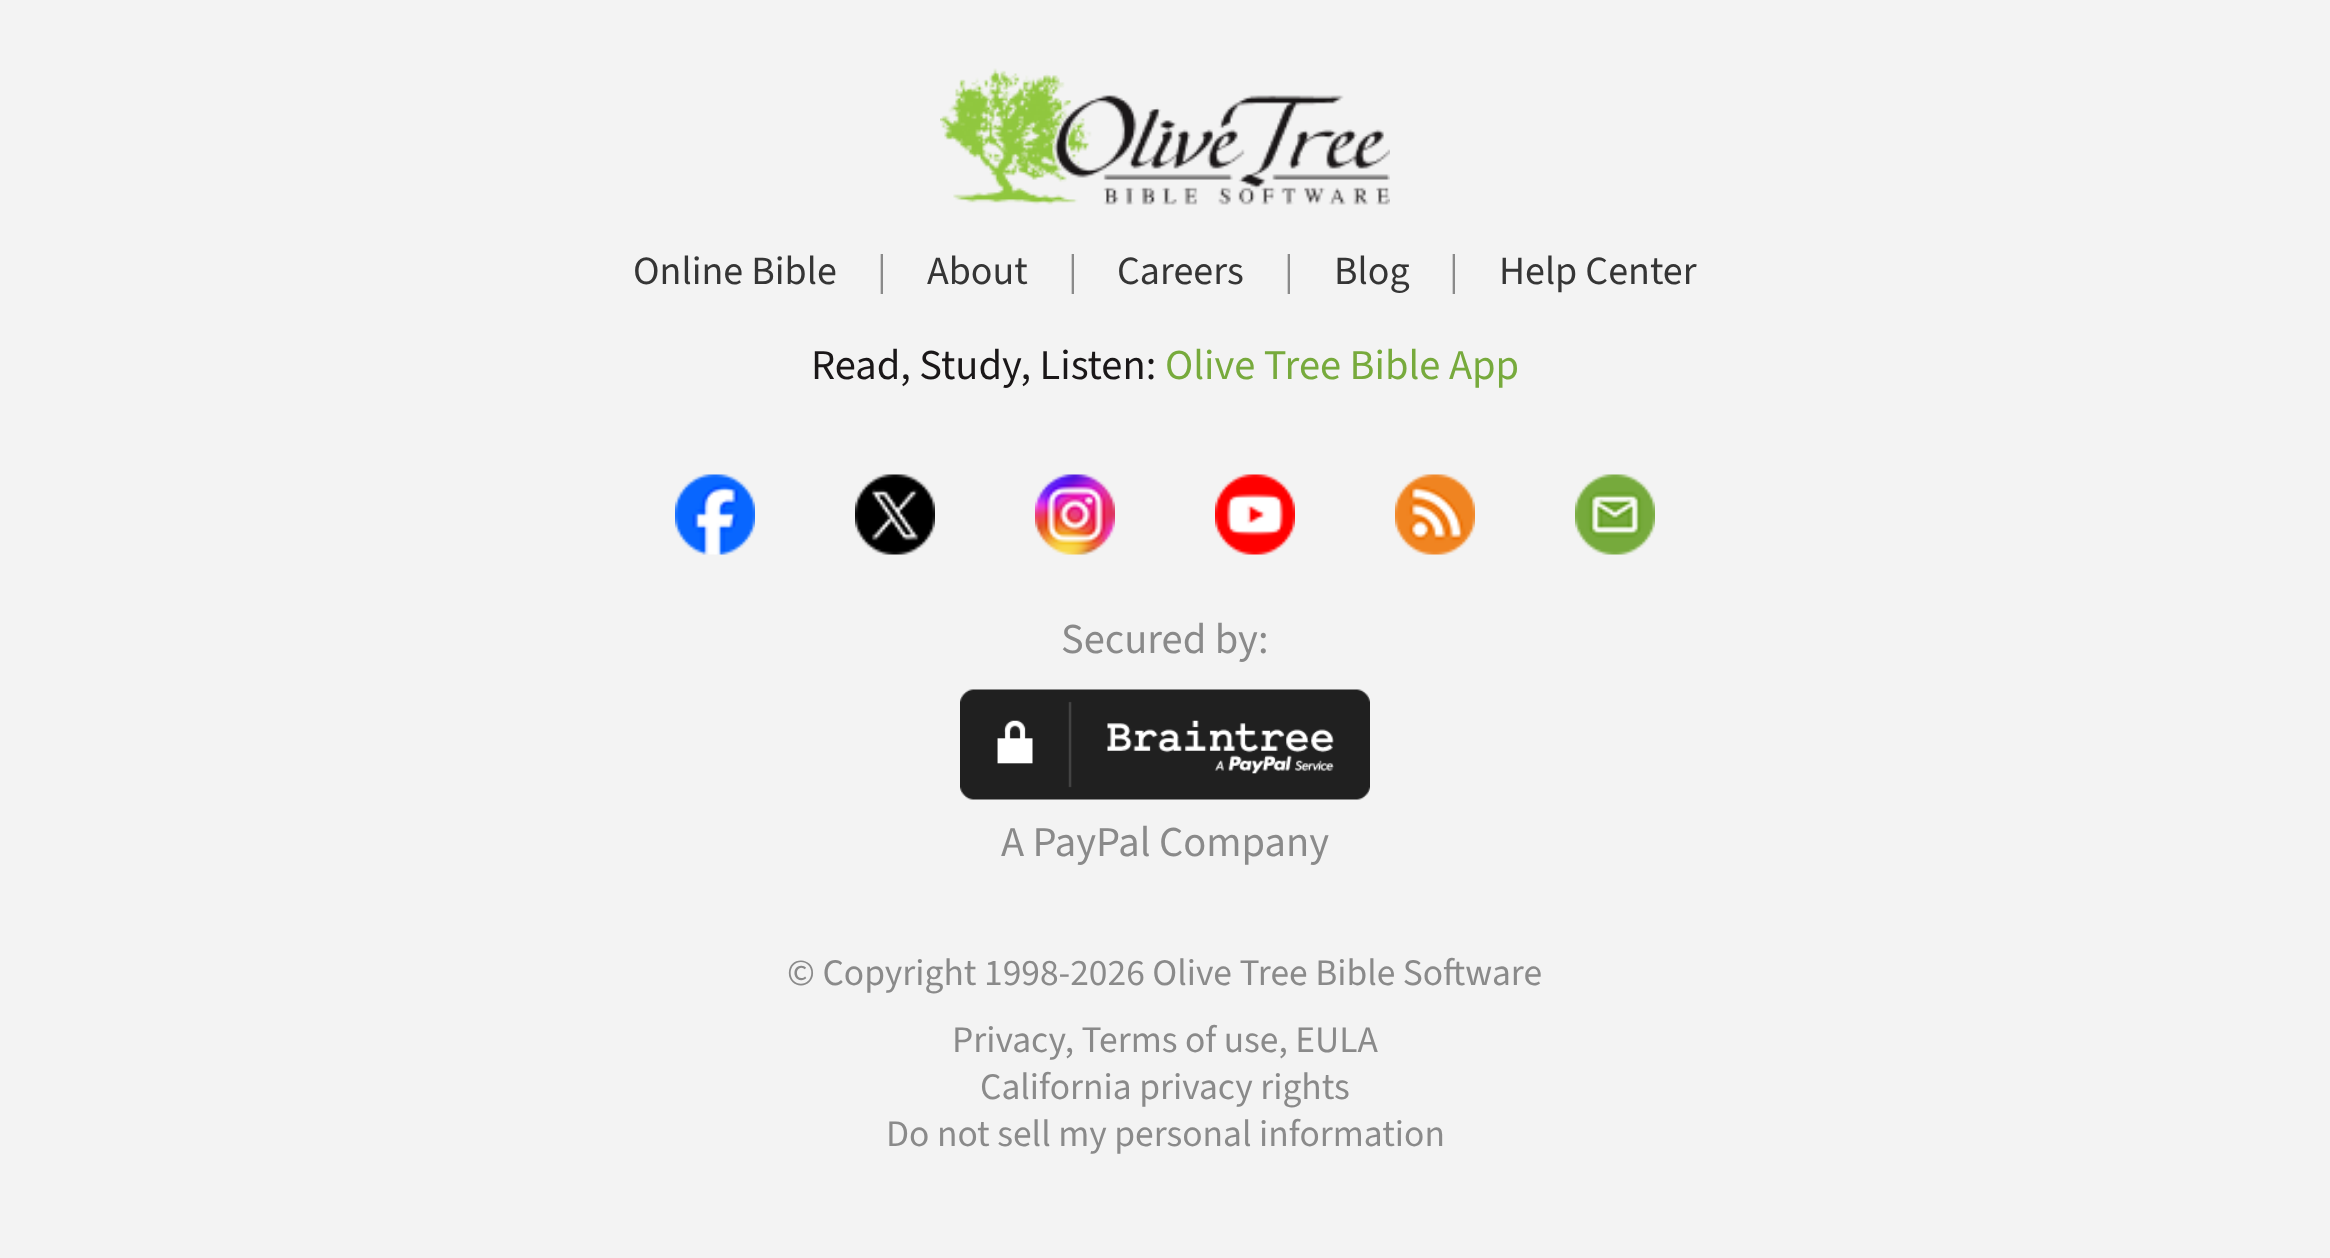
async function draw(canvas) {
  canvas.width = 2330
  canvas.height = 1258
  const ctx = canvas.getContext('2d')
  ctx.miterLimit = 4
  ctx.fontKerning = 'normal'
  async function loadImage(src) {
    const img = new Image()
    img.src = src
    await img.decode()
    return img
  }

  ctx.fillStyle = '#f3f3f3'
  ctx.fillRect(0, 0, 2330, 1258)
  ctx.drawImage(await loadImage('image0.png'), 940, 68, 450, 137)
  ctx.font = '40px "Source Sans 3"'
  ctx.fillStyle = '#353535'
  ctx.fillText('Online Bible', 633, 284)
  ctx.fillStyle = '#8a8a8a'
  ctx.fillText('|', 877, 284)
  ctx.fillStyle = '#353535'
  ctx.fillText('About', 927, 284)
  ctx.fillStyle = '#8a8a8a'
  ctx.fillText('|', 1068, 284)
  ctx.fillStyle = '#353535'
  ctx.fillText('Careers', 1117, 284)
  ctx.fillStyle = '#8a8a8a'
  ctx.fillText('|', 1284, 284)
  ctx.fillStyle = '#353535'
  ctx.fillText('Blog', 1334, 284)
  ctx.fillStyle = '#8a8a8a'
  ctx.fillText('|', 1449, 284)
  ctx.fillStyle = '#353535'
  ctx.fillText('Help Center', 1499, 284)
  ctx.font = '42.5px "Source Sans 3"'
  ctx.fillStyle = '#1a1718'
  ctx.fillText('Read, Study, Listen:', 811, 379)
  ctx.fillStyle = '#77aa3c'
  ctx.fillText('Olive Tree Bible App', 1165, 379)
  ctx.drawImage(await loadImage('image1.png'), 675, 474, 80, 81)
  ctx.drawImage(await loadImage('image2.png'), 855, 474, 80, 81)
  ctx.drawImage(await loadImage('image3.png'), 1035, 474, 80, 81)
  ctx.drawImage(await loadImage('image4.png'), 1215, 474, 80, 81)
  ctx.drawImage(await loadImage('image5.png'), 1395, 474, 80, 81)
  ctx.drawImage(await loadImage('image6.png'), 1575, 474, 80, 81)
  ctx.fillStyle = '#8a8a8a'
  ctx.fillText('Secured by:', 1061, 653)
  ctx.drawImage(await loadImage('image7.png'), 960, 689, 410, 111)
  ctx.fillText('A PayPal Company', 1001, 856)
  ctx.font = '37.5px "Source Sans 3"'
  ctx.fillText('© Copyright 1998-2026 Olive Tree Bible Software', 787, 985)
  ctx.fillText('Privacy, Terms of use, EULA', 952, 1052)
  ctx.fillText('California privacy rights', 980, 1099)
  ctx.fillText('Do not sell my personal information', 886, 1146)
}

draw(document.querySelector('canvas'))
